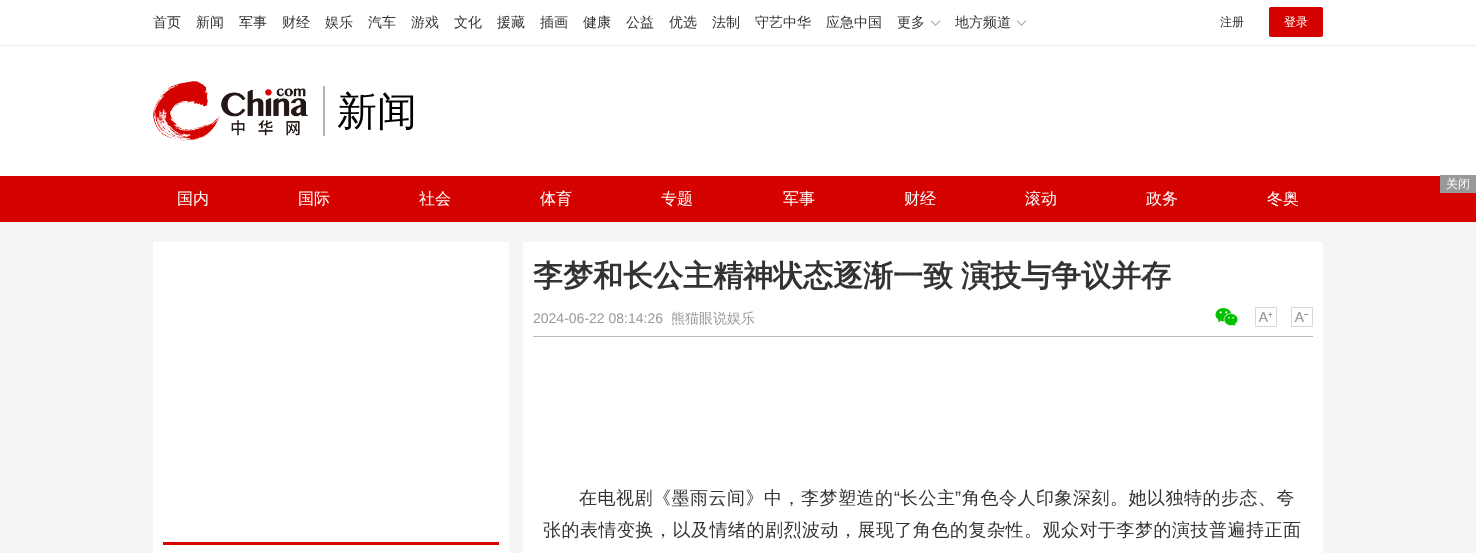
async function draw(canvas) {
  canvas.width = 1476
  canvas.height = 553
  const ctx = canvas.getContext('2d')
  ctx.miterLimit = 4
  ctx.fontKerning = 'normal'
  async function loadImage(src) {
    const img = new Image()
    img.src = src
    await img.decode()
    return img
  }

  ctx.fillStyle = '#f5f5f5'
  ctx.fillRect(0, 0, 1476, 553)
  ctx.fillStyle = '#fff'
  ctx.fillRect(0, 0, 1476, 45)
  ctx.fillStyle = '#eee'
  ctx.fillRect(0, 45, 1476, 1)
  ctx.font = '500 14px WenQuanYi Zen Hei'
  ctx.fillStyle = '#333'
  ctx.fillText('首页', 153, 27)
  ctx.fillText('新闻', 196, 27)
  ctx.fillText('军事', 239, 27)
  ctx.fillText('财经', 282, 27)
  ctx.fillText('娱乐', 325, 27)
  ctx.fillText('汽车', 368, 27)
  ctx.fillText('游戏', 411, 27)
  ctx.fillText('文化', 454, 27)
  ctx.fillText('援藏', 497, 27)
  ctx.fillText('插画', 540, 27)
  ctx.fillText('健康', 583, 27)
  ctx.fillText('公益', 626, 27)
  ctx.fillText('优选', 669, 27)
  ctx.fillText('法制', 712, 27)
  ctx.fillText('守艺中华', 755, 27)
  ctx.fillText('应急中国', 826, 27)
  ctx.fillText('更多', 897, 27)
  ctx.drawImage(await loadImage('image0.png'), 931, 20, 9, 6)
  ctx.fillText('地方频道', 955, 27)
  ctx.drawImage(await loadImage('image0.png'), 1017, 20, 9, 6)
  ctx.font = '500 12px WenQuanYi Zen Hei'
  ctx.fillText('注册', 1220, 26)
  ctx.fillStyle = '#d40300'
  ctx.beginPath()
  ctx.roundRect(1269, 7, 54, 30, 2)
  ctx.fill()
  ctx.fillStyle = '#fff'
  ctx.fillText('登录', 1284, 26)
  ctx.fillRect(0, 46, 1476, 130)
  ctx.drawImage(await loadImage('image1.png'), 153, 81, 156, 60)
  ctx.fillStyle = '#b2b2b2'
  ctx.fillRect(323, 86, 2, 50)
  ctx.font = '500 40px WenQuanYi Zen Hei'
  ctx.fillStyle = '#000'
  ctx.fillText('新闻', 337, 125)
  ctx.fillStyle = '#d40300'
  ctx.fillRect(0, 176, 1476, 46)
  ctx.font = '500 16px WenQuanYi Zen Hei'
  ctx.fillStyle = '#fff'
  ctx.fillText('国内', 177, 204)
  ctx.fillText('国际', 298, 204)
  ctx.fillText('社会', 419, 204)
  ctx.fillText('体育', 540, 204)
  ctx.fillText('专题', 661, 204)
  ctx.fillText('军事', 783, 204)
  ctx.fillText('财经', 904, 204)
  ctx.fillText('滚动', 1025, 204)
  ctx.fillText('政务', 1146, 204)
  ctx.fillText('冬奥', 1267, 204)
  ctx.fillRect(153, 242, 356, 311)
  ctx.fillStyle = '#d40300'
  ctx.fillRect(163, 542, 336, 3)
  ctx.fillStyle = '#fff'
  ctx.fillRect(523, 242, 800, 311)
  ctx.fillStyle = '#999'
  ctx.fillRect(1440, 175, 36, 18)
  ctx.font = '500 12px WenQuanYi Zen Hei'
  ctx.fillStyle = '#fff'
  ctx.fillText('关闭', 1446, 188)
  ctx.wordSpacing = '-1px'
  ctx.font = 'bold 30px WenQuanYi Zen Hei'
  ctx.fillStyle = '#333'
  ctx.fillText('李梦和长公主精神状态逐渐一致 演技与争议并存', 533, 286)
  ctx.fillStyle = '#bbb'
  ctx.fillRect(533, 336, 780, 1)
  ctx.wordSpacing = '0px'
  ctx.font = '14px Liberation Sans'
  ctx.fillStyle = '#999'
  ctx.fillText('2024-06-22 08:14:26', 533, 323)
  ctx.font = '500 14px WenQuanYi Zen Hei'
  ctx.fillText('熊猫眼说娱乐', 671, 323)
  ctx.drawImage(await loadImage('image2.png'), 1215, 308, 23, 18)
  ctx.drawImage(await loadImage('image3.png'), 1255, 307, 22, 20)
  ctx.drawImage(await loadImage('image4.png'), 1291, 307, 22, 20)
  ctx.letterSpacing = '0.5px'
  ctx.font = '500 18px WenQuanYi Zen Hei'
  ctx.fillStyle = '#333'
  ctx.fillText('在电视剧《墨雨云间》中，李梦塑造的', 579, 504)
  ctx.font = '18px Liberation Sans'
  ctx.fillText('“', 894, 504)
  ctx.font = '500 18px WenQuanYi Zen Hei'
  ctx.fillText('长公主', 900, 504)
  ctx.font = '18px Liberation Sans'
  ctx.fillText('”', 955, 504)
  ctx.font = '500 18px WenQuanYi Zen Hei'
  ctx.fillText('角色令人印象深刻。她以独特的步态、夸', 962, 504)
  ctx.fillText('张的表情变换，以及情绪的剧烈波动，展现了角色的复杂性。观众对于李梦的演技普遍持正面', 543, 536)
}

draw(document.querySelector('canvas'))
